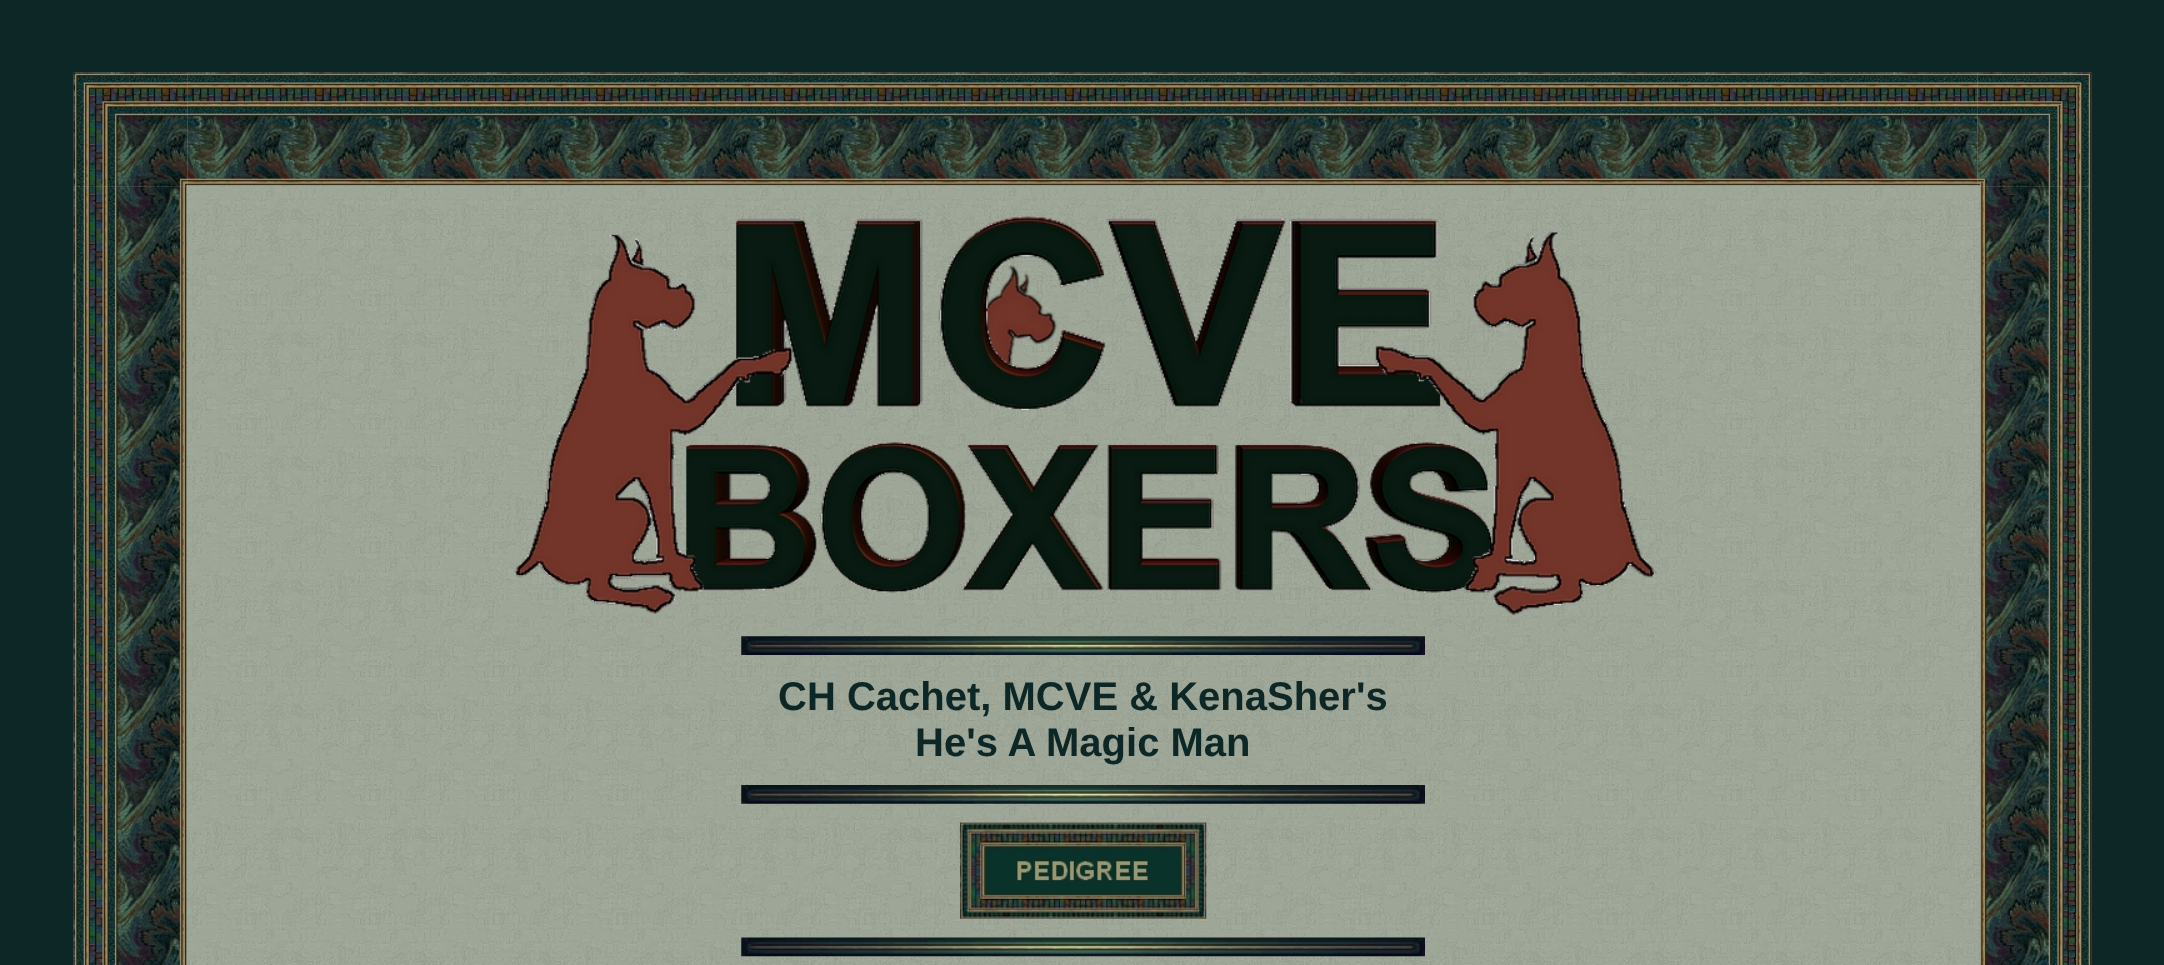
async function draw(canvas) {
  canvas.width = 2164
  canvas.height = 965
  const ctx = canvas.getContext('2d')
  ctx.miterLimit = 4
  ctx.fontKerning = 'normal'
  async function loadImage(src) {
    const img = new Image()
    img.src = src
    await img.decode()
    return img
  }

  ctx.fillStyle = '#0d2726'
  ctx.fillRect(0, 0, 2164, 965)
  ctx.drawImage(await loadImage('image0.png'), 73, 72, 2019, 893)
  ctx.drawImage(await loadImage('image1.png'), 73, 72, 115, 115)
  ctx.drawImage(await loadImage('image2.png'), 187, 72, 1791, 115)
  ctx.drawImage(await loadImage('image3.png'), 1977, 72, 115, 115)
  ctx.drawImage(await loadImage('image4.png'), 73, 186, 115, 779)
  ctx.drawImage(await loadImage('image5.png'), 498, 205, 1169, 413)
  ctx.drawImage(await loadImage('image6.png'), 741, 636, 684, 19)
  ctx.font = 'bold 40px Liberation Sans'
  ctx.fillStyle = '#0c2726'
  ctx.fillText('CH Cachet, MCVE & KenaSher\'s', 778, 710)
  ctx.fillText('He\'s A Magic Man', 915, 756)
  ctx.drawImage(await loadImage('image7.png'), 741, 785, 684, 19)
  ctx.drawImage(await loadImage('image8.png'), 960, 822, 247, 97)
  ctx.drawImage(await loadImage('image9.png'), 741, 937, 684, 20)
  ctx.drawImage(await loadImage('image10.png'), 1977, 186, 115, 779)
}

draw(document.querySelector('canvas'))
